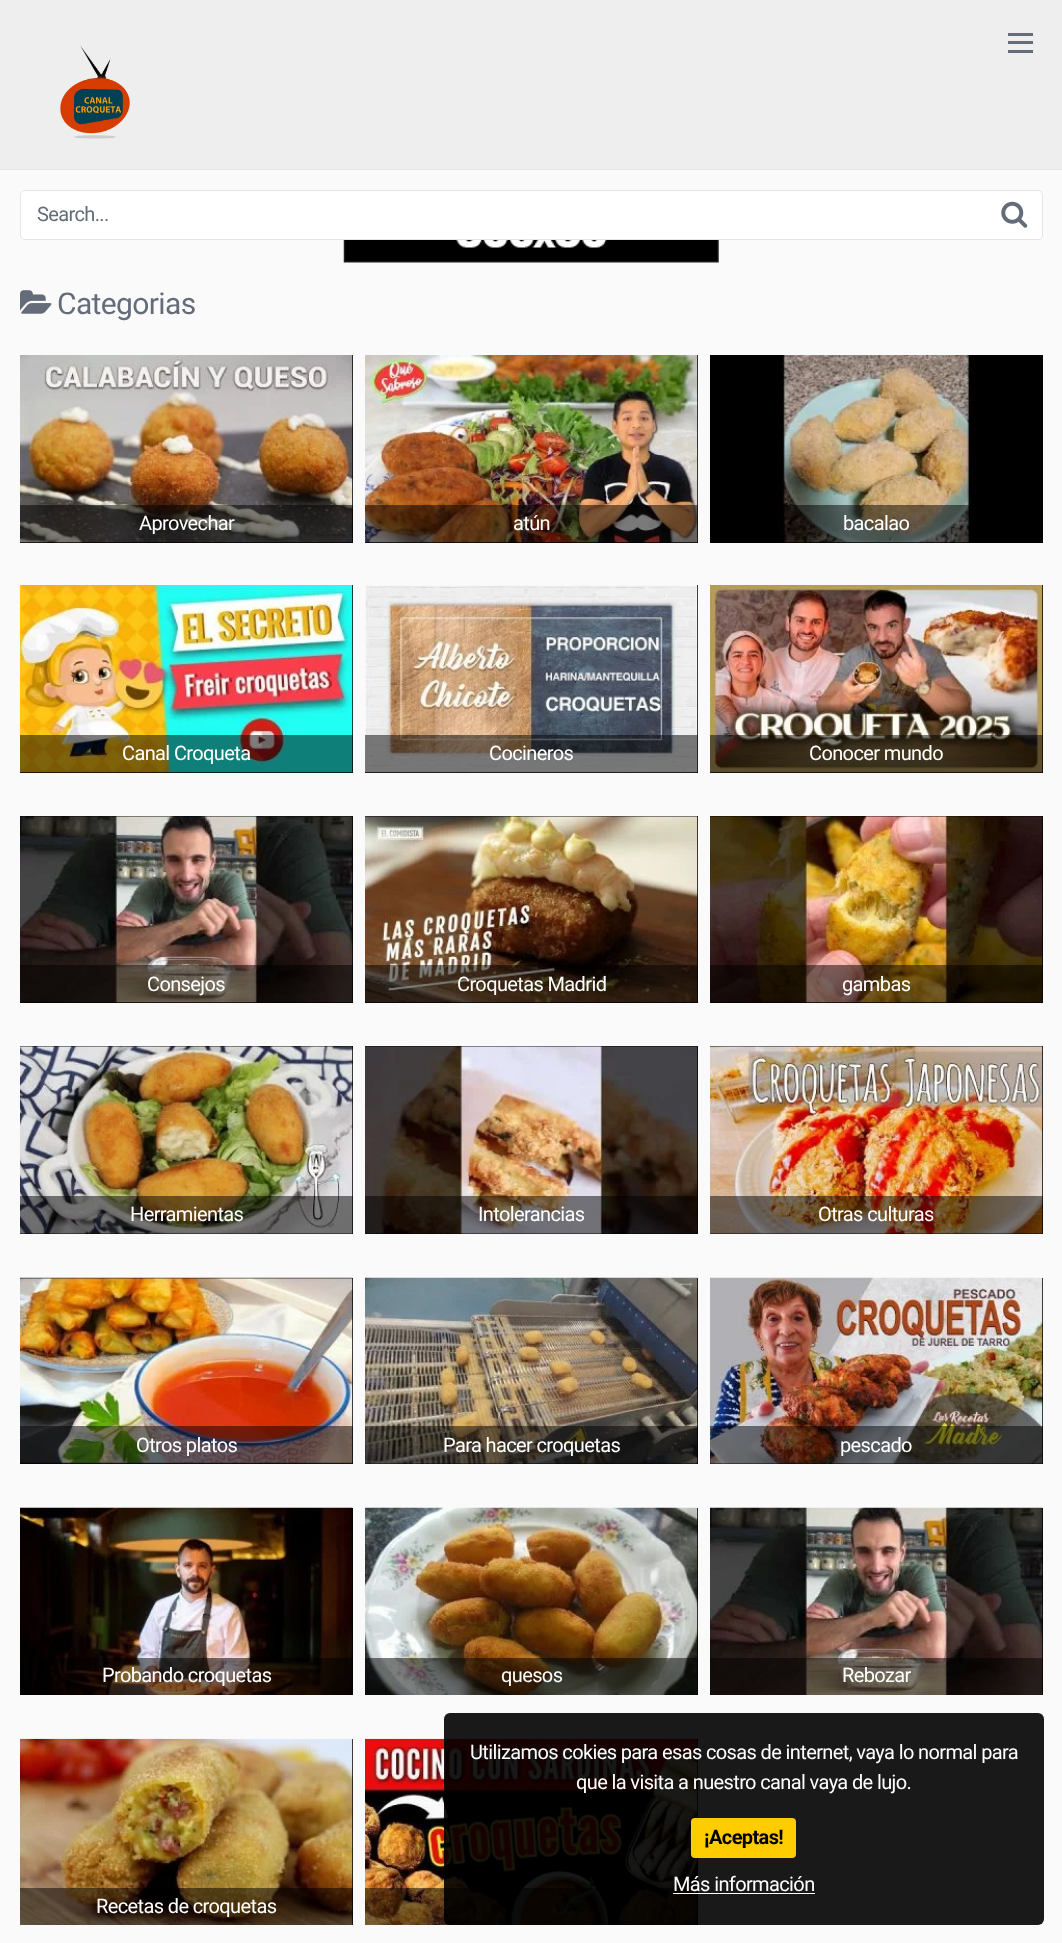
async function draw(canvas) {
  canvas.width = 1062
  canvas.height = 1943
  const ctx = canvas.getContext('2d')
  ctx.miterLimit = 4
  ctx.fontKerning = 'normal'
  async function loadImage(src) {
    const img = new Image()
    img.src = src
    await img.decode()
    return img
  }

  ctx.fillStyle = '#fafafa'
  ctx.fillRect(0, 0, 1062, 1943)
  ctx.fillStyle = '#eee'
  ctx.fillRect(0, 0, 1062, 169)
  ctx.fillStyle = '#e5e5e5'
  ctx.fillRect(0, 169, 1062, 1)
  ctx.fillStyle = '#646c79'
  ctx.fillRect(1008, 33, 25, 3)
  ctx.fillRect(1008, 41, 25, 3)
  ctx.fillRect(1008, 50, 25, 3)
  ctx.drawImage(await loadImage('image0.png'), 60, 45, 70, 94)
  ctx.fillStyle = '#fff'
  ctx.beginPath()
  ctx.roundRect(20.5, 190.5, 1022, 49, 4.5)
  ctx.fill()
  ctx.strokeStyle = '#e5e5e5'
  ctx.stroke()
  ctx.letterSpacing = '-0.62px'
  ctx.font = '20px Roboto'
  ctx.fillStyle = '#646c79'
  ctx.fillText('Search...', 37, 221)
  ctx.drawImage(await loadImage('image1.png'), 1001, 201, 27, 27)
  ctx.drawImage(await loadImage('image2.png'), 343, 240, 376, 23)
  ctx.drawImage(await loadImage('image3.png'), 20, 290, 32, 24)
  ctx.font = '30px Roboto'
  ctx.fillText('Categorias', 57, 314)
  ctx.fillStyle = '#000'
  ctx.fillRect(20, 355, 333, 188)
  ctx.drawImage(await loadImage('image4.png'), 20, 355, 333, 188)
  ctx.fillStyle = '#00000080'
  ctx.fillRect(20, 505, 333, 38)
  ctx.font = '20px Roboto'
  ctx.fillStyle = '#fff'
  ctx.fillText('Aprovechar', 139, 530)
  ctx.fillStyle = '#000'
  ctx.fillRect(365, 355, 333, 188)
  ctx.drawImage(await loadImage('image5.png'), 365, 355, 333, 188)
  ctx.fillStyle = '#00000080'
  ctx.fillRect(365, 505, 333, 38)
  ctx.fillStyle = '#fff'
  ctx.fillText('atún', 513, 530)
  ctx.fillStyle = '#000'
  ctx.fillRect(710, 355, 333, 188)
  ctx.drawImage(await loadImage('image6.png'), 777, 355, 199, 188)
  ctx.fillStyle = '#00000080'
  ctx.fillRect(781, 505, 195, 38)
  ctx.fillStyle = '#fff'
  ctx.fillText('bacalao', 843, 530)
  ctx.fillStyle = '#000'
  ctx.fillRect(20, 585, 333, 188)
  ctx.drawImage(await loadImage('image7.png'), 20, 585, 333, 188)
  ctx.fillStyle = '#00000080'
  ctx.fillRect(20, 735, 333, 38)
  ctx.fillStyle = '#fff'
  ctx.fillText('Canal Croqueta', 122, 760)
  ctx.fillStyle = '#000'
  ctx.fillRect(365, 585, 333, 188)
  ctx.drawImage(await loadImage('image8.png'), 365, 585, 333, 188)
  ctx.fillStyle = '#00000080'
  ctx.fillRect(365, 735, 333, 38)
  ctx.fillStyle = '#fff'
  ctx.fillText('Cocineros', 489, 760)
  ctx.fillStyle = '#000'
  ctx.fillRect(710, 585, 333, 188)
  ctx.drawImage(await loadImage('image9.png'), 710, 585, 333, 188)
  ctx.fillStyle = '#00000080'
  ctx.fillRect(710, 735, 333, 38)
  ctx.fillStyle = '#fff'
  ctx.fillText('Conocer mundo', 809, 760)
  ctx.fillStyle = '#000'
  ctx.fillRect(20, 816, 333, 187)
  ctx.drawImage(await loadImage('image10.png'), 20, 816, 333, 187)
  ctx.fillStyle = '#00000080'
  ctx.fillRect(20, 965, 333, 38)
  ctx.fillStyle = '#fff'
  ctx.fillText('Consejos', 147, 991)
  ctx.fillStyle = '#000'
  ctx.fillRect(365, 816, 333, 187)
  ctx.drawImage(await loadImage('image11.png'), 365, 816, 333, 187)
  ctx.fillStyle = '#00000080'
  ctx.fillRect(365, 965, 333, 38)
  ctx.fillStyle = '#fff'
  ctx.fillText('Croquetas Madrid', 457, 991)
  ctx.fillStyle = '#000'
  ctx.fillRect(710, 816, 333, 187)
  ctx.drawImage(await loadImage('image12.png'), 710, 816, 333, 187)
  ctx.fillStyle = '#00000080'
  ctx.fillRect(710, 965, 333, 38)
  ctx.fillStyle = '#fff'
  ctx.fillText('gambas', 842, 991)
  ctx.fillStyle = '#000'
  ctx.fillRect(20, 1046, 333, 188)
  ctx.drawImage(await loadImage('image13.png'), 20, 1046, 333, 188)
  ctx.fillStyle = '#00000080'
  ctx.fillRect(20, 1196, 333, 38)
  ctx.fillStyle = '#fff'
  ctx.fillText('Herramientas', 130, 1221)
  ctx.fillStyle = '#000'
  ctx.fillRect(365, 1046, 333, 188)
  ctx.drawImage(await loadImage('image14.png'), 365, 1046, 333, 188)
  ctx.fillStyle = '#00000080'
  ctx.fillRect(365, 1196, 333, 38)
  ctx.fillStyle = '#fff'
  ctx.fillText('Intolerancias', 478, 1221)
  ctx.fillStyle = '#000'
  ctx.fillRect(710, 1046, 333, 188)
  ctx.drawImage(await loadImage('image15.png'), 710, 1046, 333, 188)
  ctx.fillStyle = '#00000080'
  ctx.fillRect(710, 1196, 333, 38)
  ctx.fillStyle = '#fff'
  ctx.fillText('Otras culturas', 818, 1221)
  ctx.fillStyle = '#000'
  ctx.fillRect(20, 1278, 333, 186)
  ctx.drawImage(await loadImage('image16.png'), 20, 1277, 333, 187)
  ctx.fillStyle = '#00000080'
  ctx.fillRect(20, 1426, 333, 38)
  ctx.fillStyle = '#fff'
  ctx.fillText('Otros platos', 136, 1452)
  ctx.fillStyle = '#000'
  ctx.fillRect(365, 1278, 333, 186)
  ctx.drawImage(await loadImage('image17.png'), 365, 1277, 333, 187)
  ctx.fillStyle = '#00000080'
  ctx.fillRect(365, 1426, 333, 38)
  ctx.fillStyle = '#fff'
  ctx.fillText('Para hacer croquetas', 443, 1452)
  ctx.fillStyle = '#000'
  ctx.fillRect(710, 1278, 333, 186)
  ctx.drawImage(await loadImage('image18.png'), 710, 1277, 333, 187)
  ctx.fillStyle = '#00000080'
  ctx.fillRect(710, 1426, 333, 38)
  ctx.fillStyle = '#fff'
  ctx.fillText('pescado', 840, 1452)
  ctx.fillStyle = '#000'
  ctx.fillRect(352, 1508, 1, 187)
  ctx.drawImage(await loadImage('image19.png'), 20, 1507, 333, 188)
  ctx.fillStyle = '#00000080'
  ctx.fillRect(20, 1658, 333, 37)
  ctx.fillStyle = '#fff'
  ctx.fillText('Probando croquetas', 102, 1682)
  ctx.fillStyle = '#000'
  ctx.fillRect(697, 1508, 1, 187)
  ctx.drawImage(await loadImage('image20.png'), 365, 1507, 333, 188)
  ctx.fillStyle = '#00000080'
  ctx.fillRect(365, 1658, 333, 37)
  ctx.fillStyle = '#fff'
  ctx.fillText('quesos', 501, 1682)
  ctx.fillStyle = '#000'
  ctx.fillRect(1042, 1508, 1, 187)
  ctx.drawImage(await loadImage('image21.png'), 710, 1507, 333, 188)
  ctx.fillStyle = '#00000080'
  ctx.fillRect(710, 1658, 333, 37)
  ctx.fillStyle = '#fff'
  ctx.fillText('Rebozar', 842, 1682)
  ctx.fillStyle = '#000'
  ctx.fillRect(352, 1739, 1, 186)
  ctx.drawImage(await loadImage('image22.png'), 20, 1738, 333, 187)
  ctx.fillStyle = '#00000080'
  ctx.fillRect(20, 1888, 333, 37)
  ctx.fillStyle = '#fff'
  ctx.fillText('Recetas de croquetas', 96, 1913)
  ctx.fillStyle = '#000'
  ctx.fillRect(697, 1739, 1, 186)
  ctx.drawImage(await loadImage('image23.png'), 365, 1738, 333, 187)
  ctx.fillStyle = '#00000080'
  ctx.fillRect(365, 1888, 333, 37)
  ctx.fillStyle = '#000000e6'
  ctx.beginPath()
  ctx.roundRect(444, 1713, 600, 212, 6)
  ctx.fill()
  ctx.fillStyle = '#fff'
  ctx.fillText('Utilizamos cokies para esas cosas de internet, vaya lo normal para', 470, 1759)
  ctx.fillText('que la visita a nuestro canal vaya de lujo.', 576, 1789)
  ctx.fillStyle = '#fc0'
  ctx.beginPath()
  ctx.roundRect(691, 1818, 105, 40, 4)
  ctx.fill()
  ctx.font = 'bold 20px Roboto'
  ctx.fillStyle = '#000'
  ctx.fillText('¡Aceptas!', 704, 1844)
  ctx.font = '20px Roboto'
  ctx.fillStyle = '#fff'
  ctx.fillText('Más información', 673, 1891)
  ctx.fillRect(673, 1893, 142, 1)
}

draw(document.querySelector('canvas'))
